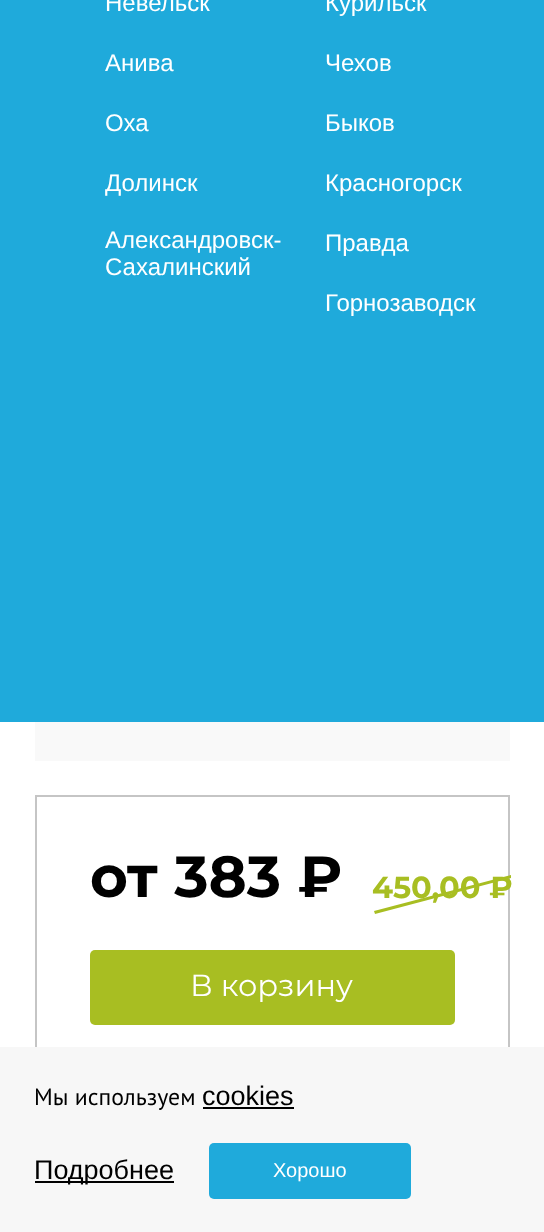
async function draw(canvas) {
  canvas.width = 544
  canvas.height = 1232
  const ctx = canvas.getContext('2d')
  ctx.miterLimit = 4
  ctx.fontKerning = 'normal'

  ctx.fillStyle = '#fff'
  ctx.fillRect(0, 0, 544, 1232)
  ctx.fillStyle = '#1faadb'
  ctx.fillRect(0, 0, 544, 722)
  ctx.font = '24px Liberation Sans'
  ctx.fillStyle = '#fff'
  ctx.fillText('Невельск', 105, 11)
  ctx.fillText('Курильск', 325, 11)
  ctx.fillText('Анива', 105, 71)
  ctx.fillText('Чехов', 325, 71)
  ctx.fillText('Оха', 105, 131)
  ctx.fillText('Быков', 325, 131)
  ctx.fillText('Долинск', 105, 191)
  ctx.fillText('Красногорск', 325, 191)
  ctx.fillText('Александровск-', 105, 248)
  ctx.fillText('Сахалинский', 105, 275)
  ctx.fillText('Правда', 325, 251)
  ctx.fillText('Горнозаводск', 325, 311)
  ctx.fillStyle = '#f9f9f9'
  ctx.fillRect(35, 722, 475, 39)
  ctx.strokeStyle = '#c5c5c5'
  ctx.lineWidth = 2
  ctx.strokeRect(36, 796, 473, 283)
  ctx.font = 'bold 58px Montserrat'
  ctx.fillStyle = '#000'
  ctx.fillText('от 383 ₽', 90, 897)
  ctx.fillStyle = '#a8be22'
  ctx.beginPath()
  ctx.moveTo(374, 911)
  ctx.lineTo(511, 875)
  ctx.lineTo(511, 878)
  ctx.lineTo(375, 914)
  ctx.closePath()
  ctx.fill()
  ctx.font = 'bold 30.5px Montserrat'
  ctx.fillText('450,00 ₽', 372, 898)
  ctx.beginPath()
  ctx.roundRect(90, 950, 365, 75, 5)
  ctx.fill()
  ctx.font = '30.5px Montserrat'
  ctx.fillStyle = '#fff'
  ctx.fillText('В корзину', 190, 996)
  ctx.fillStyle = '#f7f7f7'
  ctx.fillRect(0, 1047, 544, 185)
  ctx.font = '23.75px PT Sans'
  ctx.fillStyle = '#000'
  ctx.fillText('Мы используем', 34, 1105)
  ctx.font = '27px Liberation Sans'
  ctx.fillText('cookies', 202, 1105)
  ctx.fillRect(203, 1107, 91, 2)
  ctx.fillRect(35, 1181, 139, 2)
  ctx.fillText('Подробнее', 34, 1179)
  ctx.fillStyle = '#1faadb'
  ctx.beginPath()
  ctx.roundRect(209, 1143, 202, 56, 5)
  ctx.fill()
  ctx.font = '20px Liberation Sans'
  ctx.fillStyle = '#fff'
  ctx.fillText('Хорошо', 273, 1177)
}

draw(document.querySelector('canvas'))
